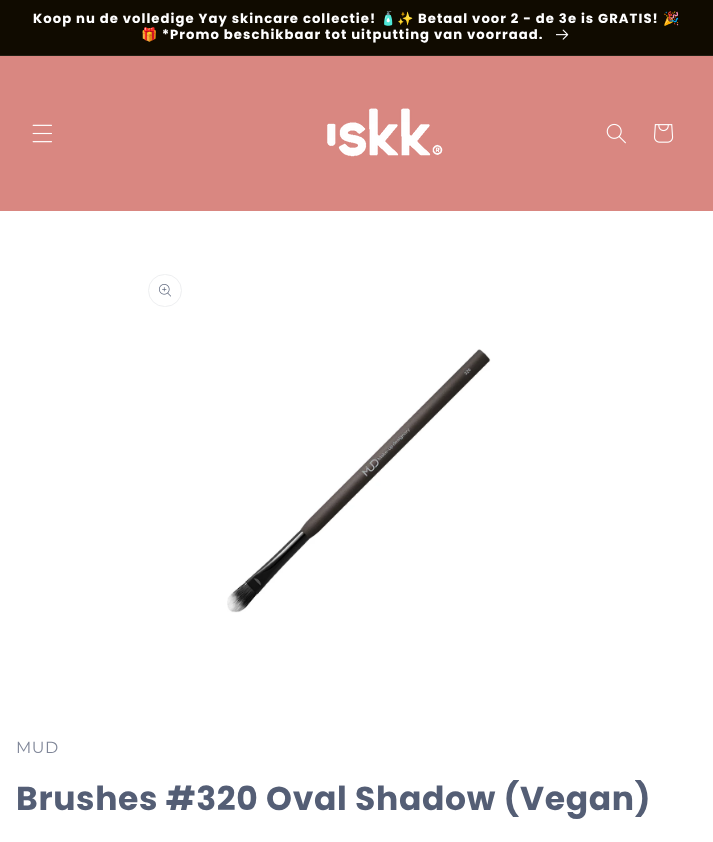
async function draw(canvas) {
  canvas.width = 713
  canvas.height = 842
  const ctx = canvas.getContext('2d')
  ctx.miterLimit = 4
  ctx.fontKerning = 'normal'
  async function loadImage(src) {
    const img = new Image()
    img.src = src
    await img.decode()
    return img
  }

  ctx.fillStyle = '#fff'
  ctx.fillRect(0, 0, 713, 842)
  ctx.fillStyle = '#100b00'
  ctx.fillRect(0, 0, 713, 55)
  ctx.fillStyle = '#231f14'
  ctx.fillRect(0, 55, 713, 1)
  ctx.letterSpacing = '1.05px'
  ctx.font = 'bold 13.2px Poppins'
  ctx.fillStyle = '#fff'
  ctx.fillText('Koop nu de volledige Yay skincare collectie!', 33, 23)
  ctx.font = 'bold 13.2px Noto Color Emoji'
  ctx.fillText('🧴✨', 380, 23)
  ctx.font = 'bold 13.2px Poppins'
  ctx.fillText('Betaal voor 2 - de 3e is GRATIS!', 418, 23)
  ctx.font = 'bold 13.2px Noto Color Emoji'
  ctx.fillText('🎉', 663, 23)
  ctx.fillText('🎁', 141, 39)
  ctx.font = 'bold 13.2px Poppins'
  ctx.fillText('*Promo beschikbaar tot uitputting van voorraad.', 162, 39)
  ctx.drawImage(await loadImage('image0.png'), 556, 29, 13, 11)
  ctx.fillStyle = '#d98781'
  ctx.fillRect(0, 56, 713, 155)
  ctx.drawImage(await loadImage('image1.png'), 32, 124, 20, 19)
  ctx.drawImage(await loadImage('image2.png'), 327, 108, 116, 49)
  ctx.drawImage(await loadImage('image3.png'), 606, 123, 20, 21)
  ctx.drawImage(await loadImage('image4.png'), 654, 124, 20, 19)
  ctx.beginPath()
  ctx.roundRect(148.5, 274.5, 33, 32, 16)
  ctx.strokeStyle = '#eeeff1'
  ctx.stroke()
  ctx.drawImage(await loadImage('image5.png'), 159, 284, 12, 13)
  ctx.drawImage(await loadImage('image6.png'), 227, 349, 264, 264)
  ctx.letterSpacing = '0.5px'
  ctx.font = '16px Montserrat'
  ctx.fillStyle = '#7f8698'
  ctx.fillText('MUD', 16, 753)
  ctx.letterSpacing = '0.65px'
  ctx.font = 'bold 33px Poppins'
  ctx.fillStyle = '#545e75'
  ctx.fillText('Brushes #320 Oval Shadow (Vegan)', 16, 810)
}

draw(document.querySelector('canvas'))
